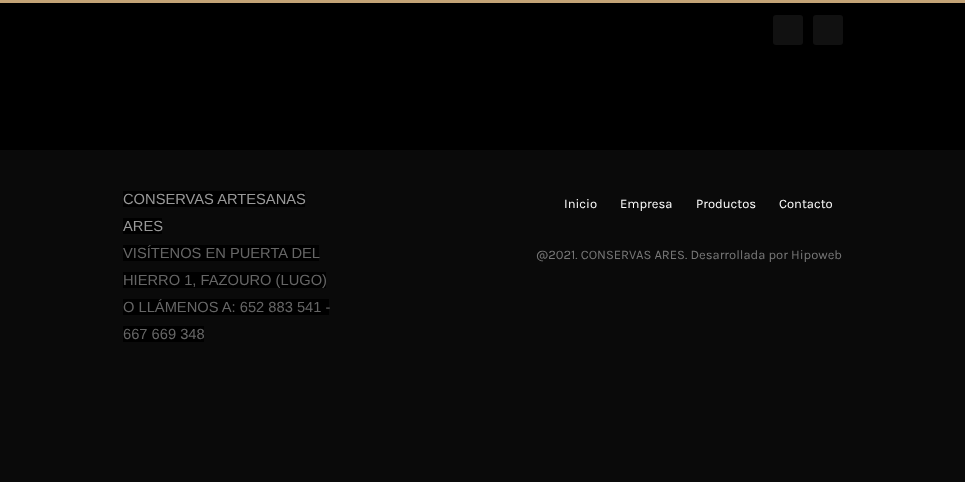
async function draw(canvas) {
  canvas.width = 965
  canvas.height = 482
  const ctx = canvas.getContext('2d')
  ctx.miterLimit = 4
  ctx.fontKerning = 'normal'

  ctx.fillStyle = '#0a0a0a'
  ctx.fillRect(0, 0, 965, 482)
  ctx.fillStyle = '#000'
  ctx.fillRect(0, 3, 965, 147)
  ctx.fillStyle = '#c3a376'
  ctx.fillRect(0, 0, 965, 3)
  ctx.fillStyle = '#111'
  ctx.beginPath()
  ctx.roundRect(773, 15, 30, 30, 3)
  ctx.fill()
  ctx.beginPath()
  ctx.roundRect(813, 15, 30, 30, 3)
  ctx.fill()
  ctx.fillStyle = '#000'
  ctx.fillRect(123, 191, 182, 16)
  ctx.font = '14.7px Liberation Sans'
  ctx.fillStyle = '#999'
  ctx.fillText('CONSERVAS ARTESANAS', 123, 204)
  ctx.fillStyle = '#000'
  ctx.fillRect(123, 218, 39, 16)
  ctx.fillStyle = '#999'
  ctx.fillText('ARES', 123, 231)
  ctx.fillStyle = '#000'
  ctx.fillRect(123, 245, 196, 16)
  ctx.fillStyle = '#666'
  ctx.fillText('VISÍTENOS EN PUERTA DEL', 123, 258)
  ctx.fillStyle = '#000'
  ctx.fillRect(123, 272, 203, 16)
  ctx.fillStyle = '#666'
  ctx.fillText('HIERRO 1, FAZOURO (LUGO)', 123, 285)
  ctx.fillStyle = '#000'
  ctx.fillRect(123, 299, 206, 16)
  ctx.fillStyle = '#666'
  ctx.fillText('O LLÁMENOS A: 652 883 541 -', 123, 312)
  ctx.fillStyle = '#000'
  ctx.fillRect(123, 326, 81, 16)
  ctx.fillStyle = '#666'
  ctx.fillText('667 669 348', 123, 339)
  ctx.font = '13px Karla'
  ctx.fillStyle = '#fff'
  ctx.fillText('Inicio', 564, 208)
  ctx.fillText('Empresa', 620, 208)
  ctx.fillText('Productos', 696, 208)
  ctx.fillText('Contacto', 779, 208)
  ctx.fillStyle = '#787878'
  ctx.fillText('@2021. CONSERVAS ARES. Desarrollada por Hipoweb', 536, 259)
}

draw(document.querySelector('canvas'))
